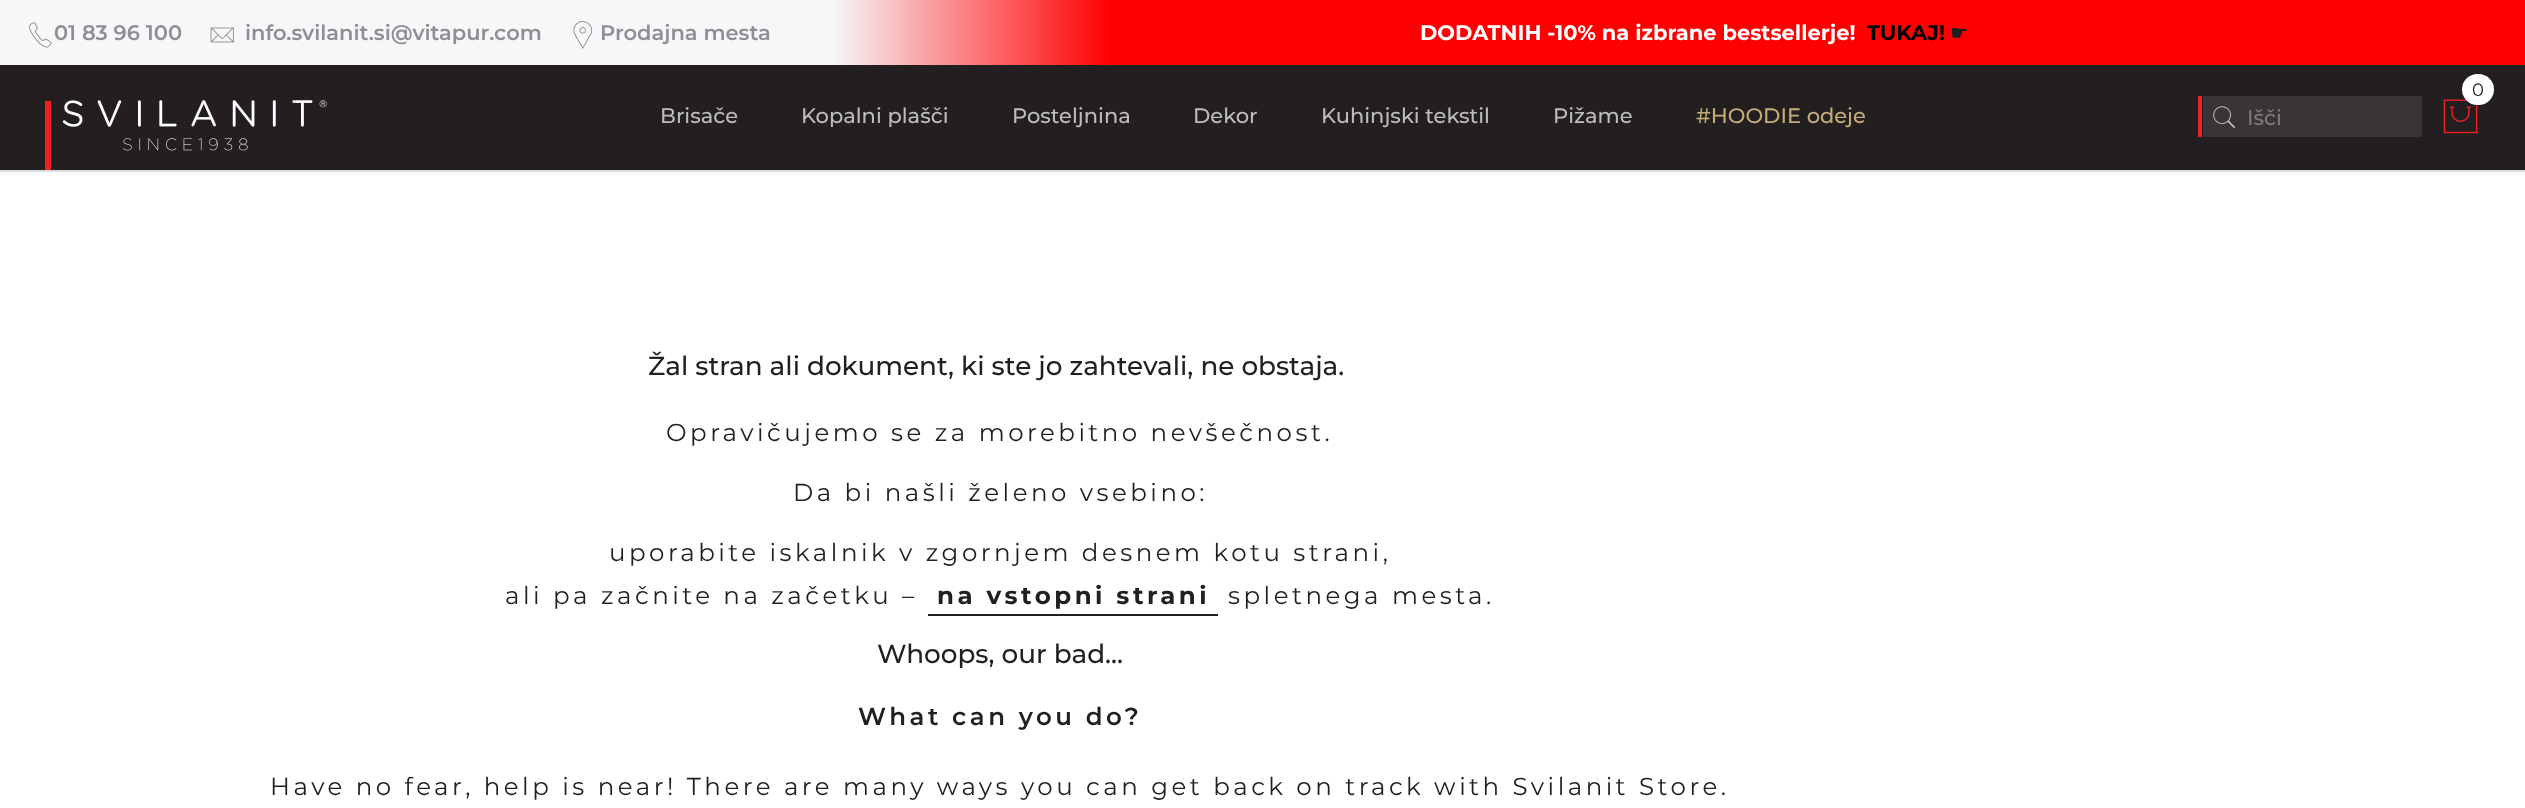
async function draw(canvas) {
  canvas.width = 2525
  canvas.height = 808
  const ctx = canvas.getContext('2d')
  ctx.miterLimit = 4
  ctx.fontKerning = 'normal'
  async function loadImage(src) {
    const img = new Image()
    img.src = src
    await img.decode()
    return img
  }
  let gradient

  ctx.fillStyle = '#fff'
  ctx.fillRect(0, 0, 2525, 808)
  ctx.fillStyle = '#f7f7f9'
  ctx.fillRect(0, 0, 831, 65)
  ctx.drawImage(await loadImage('image0.png'), 29, 22, 23, 26)
  ctx.font = '600 21px Montserrat'
  ctx.fillStyle = '#8d8f92'
  ctx.fillText('01 83 96 100', 54, 40)
  ctx.drawImage(await loadImage('image1.png'), 210, 27, 24, 16)
  ctx.fillText('info.svilanit.si@vitapur.com', 245, 40)
  ctx.drawImage(await loadImage('image2.png'), 573, 21, 20, 28)
  ctx.fillText('Prodajna mesta', 600, 40)
  ctx.fillStyle = '#f00'
  ctx.fillRect(1111, 0, 1414, 65)
  gradient = ctx.createLinearGradient(831, 32, 1111, 32)
  gradient.addColorStop(0, '#f7f7f9')
  gradient.addColorStop(1, '#f00')
  ctx.fillStyle = gradient
  ctx.fillRect(831, 0, 280, 65)
  ctx.font = 'bold 21px Montserrat'
  ctx.fillStyle = '#fff'
  ctx.fillText('DODATNIH -10% na izbrane bestsellerje!', 1420, 40)
  ctx.fillStyle = '#000'
  ctx.fillText('TUKAJ!', 1867, 40)
  ctx.font = '21px DejaVu Sans'
  ctx.fillStyle = '#231f20'
  ctx.fillText('☛', 1950, 40)
  ctx.fillRect(0, 65, 2525, 105)
  ctx.fillStyle = '#ddd'
  ctx.fillRect(0, 170, 2525, 2)
  ctx.drawImage(await loadImage('image3.png'), 45, 100, 282, 70)
  ctx.font = '500 21px Montserrat'
  ctx.fillStyle = '#bdbcbc'
  ctx.fillText('Brisače', 660, 123)
  ctx.fillText('Kopalni plašči', 801, 123)
  ctx.fillText('Posteljnina', 1012, 123)
  ctx.fillText('Dekor', 1193, 123)
  ctx.fillText('Kuhinjski tekstil', 1321, 123)
  ctx.fillText('Pižame', 1553, 123)
  ctx.fillStyle = '#c3ad74'
  ctx.fillText('#HOODIE odeje', 1696, 123)
  ctx.drawImage(await loadImage('image4.png'), 2443, 99, 35, 35)
  ctx.fillStyle = '#fff'
  ctx.beginPath()
  ctx.roundRect(2462, 74, 32, 31, 15.5)
  ctx.fill()
  ctx.font = '18px Montserrat'
  ctx.fillStyle = '#231f20'
  ctx.fillText('0', 2472, 96)
  ctx.fillStyle = '#ed2124'
  ctx.fillRect(2198, 96, 4, 41)
  ctx.fillStyle = '#393536'
  ctx.fillRect(2203, 96, 219, 41)
  ctx.drawImage(await loadImage('image5.png'), 2213, 106, 23, 23)
  ctx.font = '500 21px Montserrat'
  ctx.fillStyle = '#7d7b7c'
  ctx.fillText('Išči', 2247, 125)
  ctx.font = '500 26.25px Montserrat'
  ctx.fillStyle = '#231f20'
  ctx.fillText('Žal stran ali dokument, ki ste jo zahtevali, ne obstaja.', 648, 375)
  ctx.letterSpacing = '3.5px'
  ctx.font = '24.5px Montserrat'
  ctx.fillText('Opravičujemo se za morebitno nevšečnost.', 666, 441)
  ctx.fillText('Da bi našli želeno vsebino:', 793, 501)
  ctx.fillText('uporabite iskalnik v zgornjem desnem kotu strani,', 609, 561)
  ctx.fillText('ali pa začnite na začetku –', 505, 604)
  ctx.font = 'bold 24.5px Montserrat'
  ctx.fillText('na vstopni strani', 937, 604)
  ctx.fillRect(928, 614, 290, 2)
  ctx.font = '24.5px Montserrat'
  ctx.fillText('spletnega mesta.', 1228, 604)
  ctx.letterSpacing = '0px'
  ctx.font = '500 26.25px Montserrat'
  ctx.fillText('Whoops, our bad...', 877, 663)
  ctx.letterSpacing = '3.5px'
  ctx.font = '600 24.5px Montserrat'
  ctx.fillText('What can you do?', 858, 725)
  ctx.font = '24.5px Montserrat'
  ctx.fillText('Have no fear, help is near! There are many ways you can get back on track with Svilanit Store.', 270, 795)
}

draw(document.querySelector('canvas'))
